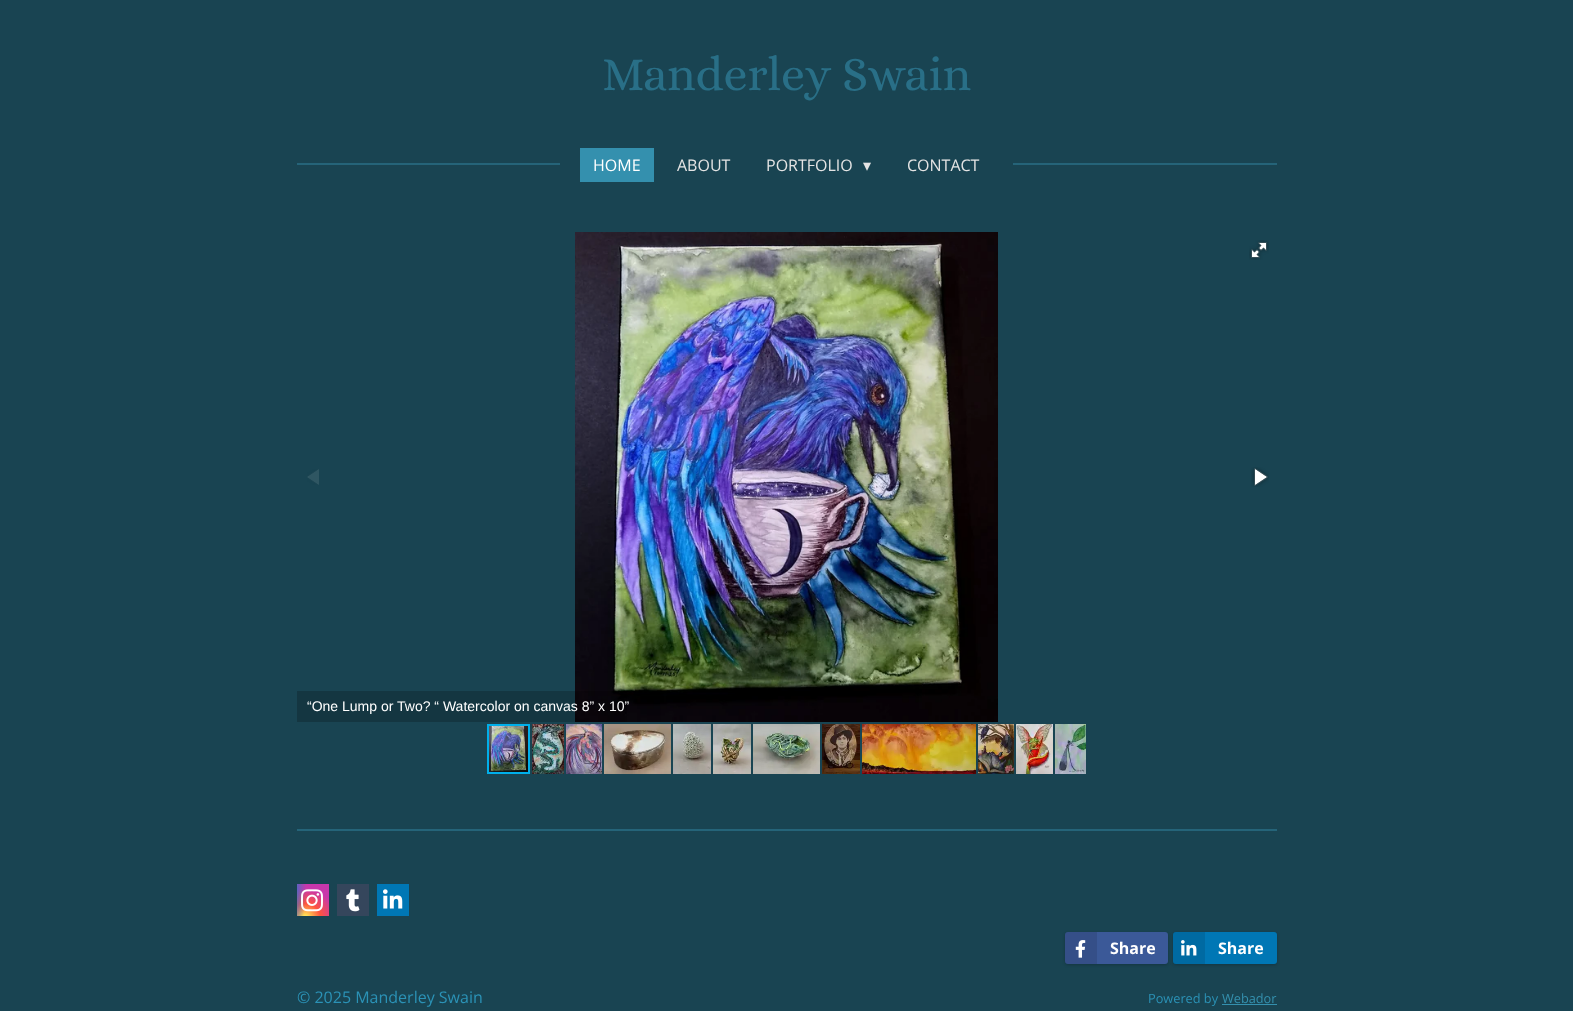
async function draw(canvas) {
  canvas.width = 1573
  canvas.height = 1011
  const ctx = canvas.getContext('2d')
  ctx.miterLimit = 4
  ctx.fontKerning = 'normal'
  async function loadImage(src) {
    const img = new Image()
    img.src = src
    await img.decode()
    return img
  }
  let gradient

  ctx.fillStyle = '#194452'
  ctx.fillRect(0, 0, 1573, 1011)
  ctx.font = '48px Alice'
  ctx.fillStyle = '#296f87'
  ctx.fillText('Manderley Swain', 602, 90)
  ctx.fillStyle = '#256479'
  ctx.fillRect(297, 163, 263, 2)
  ctx.fillStyle = '#3490ae'
  ctx.fillRect(580, 148, 74, 34)
  ctx.font = '16px Open Sans'
  ctx.fillStyle = '#fff'
  ctx.fillText('HOME', 593, 171)
  ctx.fillStyle = '#e4e4e4'
  ctx.fillText('ABOUT', 677, 171)
  ctx.fillText('PORTFOLIO', 766, 171)
  ctx.font = '16px DejaVu Sans'
  ctx.fillText('▾', 863, 171)
  ctx.font = '16px Open Sans'
  ctx.fillText('CONTACT', 907, 171)
  ctx.fillStyle = '#256479'
  ctx.fillRect(1013, 163, 264, 2)
  ctx.drawImage(await loadImage('image0.png'), 1249, 240, 20, 20)
  ctx.drawImage(await loadImage('image1.png'), 307, 469, 12, 16)
  ctx.drawImage(await loadImage('image2.png'), 1251, 467, 18, 20)
  ctx.drawImage(await loadImage('image3.png'), 575, 232, 423, 490)
  ctx.fillStyle = '#00000033'
  ctx.fillRect(297, 691, 330, 31)
  ctx.font = '14px Liberation Sans'
  ctx.fillStyle = '#fff'
  ctx.fillText('“One Lump or Two? “ Watercolor on canvas 8” x 10”', 307, 711)
  ctx.drawImage(await loadImage('image15.png'), 489, 726, 39, 46)
  ctx.strokeStyle = '#00afea'
  ctx.lineWidth = 2
  ctx.strokeRect(488, 725, 41, 48)
  ctx.drawImage(await loadImage('image4.png'), 532, 724, 32, 50)
  ctx.drawImage(await loadImage('image5.png'), 566, 724, 36, 50)
  ctx.drawImage(await loadImage('image6.png'), 604, 724, 67, 50)
  ctx.drawImage(await loadImage('image7.png'), 673, 724, 38, 50)
  ctx.drawImage(await loadImage('image8.png'), 713, 724, 38, 50)
  ctx.drawImage(await loadImage('image9.png'), 753, 724, 67, 50)
  ctx.drawImage(await loadImage('image10.png'), 822, 724, 38, 50)
  ctx.drawImage(await loadImage('image11.png'), 862, 724, 114, 50)
  ctx.drawImage(await loadImage('image12.png'), 978, 724, 36, 50)
  ctx.drawImage(await loadImage('image13.png'), 1016, 724, 37, 50)
  ctx.drawImage(await loadImage('image14.png'), 1055, 724, 31, 50)
  ctx.fillStyle = '#256479'
  ctx.fillRect(297, 829, 980, 2)
  gradient = ctx.createRadialGradient(305, 981.31, 0, 305, 981.31, 31)
  gradient.addColorStop(0, '#fd5')
  gradient.addColorStop(0.1, '#fd5')
  gradient.addColorStop(0.5, '#ff543e')
  gradient.addColorStop(1, '#c837ab')
  ctx.fillStyle = gradient
  ctx.beginPath()
  ctx.rect(297, 884, 32, 32)
  ctx.save()
  ctx.clip()
  ctx.scale(1, 29 / 31)
  ctx.fillRect(0, 0, 1573, 1081)
  ctx.restore()
  gradient = ctx.createRadialGradient(292, 213.86, 0, 292, 213.86, 14)
  gradient.addColorStop(0, '#3771c8')
  gradient.addColorStop(0.13, '#3771c8')
  gradient.addColorStop(1, '#3771c800')
  ctx.fillStyle = gradient
  ctx.beginPath()
  ctx.rect(297, 884, 9, 32)
  ctx.save()
  ctx.clip()
  ctx.scale(1, 58 / 14)
  ctx.fillRect(0, 0, 1573, 245)
  ctx.restore()
  ctx.drawImage(await loadImage('image16.png'), 301, 889, 22, 23)
  ctx.fillStyle = '#35465c'
  ctx.fillRect(337, 884, 32, 32)
  ctx.drawImage(await loadImage('image17.png'), 346, 889, 14, 23)
  ctx.fillStyle = '#0077b5'
  ctx.fillRect(377, 884, 32, 32)
  ctx.drawImage(await loadImage('image18.png'), 383, 889, 20, 20)
  ctx.fillStyle = '#00000033'
  ctx.filter = 'blur(1.5px)'
  ctx.beginPath()
  ctx.roundRect(1065, 933, 103, 32, 3)
  ctx.fill()
  ctx.filter = 'none'
  ctx.fillStyle = '#3b5998'
  ctx.beginPath()
  ctx.roundRect(1065, 932, 103, 32, 3)
  ctx.fill()
  ctx.fillStyle = '#0000001a'
  ctx.beginPath()
  ctx.roundRect(1065, 932, 32, 32, [3, 0, 0, 3])
  ctx.fill()
  ctx.drawImage(await loadImage('image19.png'), 1075, 940, 11, 18)
  ctx.font = 'bold 16px Open Sans'
  ctx.fillStyle = '#fff'
  ctx.fillText('Share', 1110, 954)
  ctx.fillStyle = '#00000033'
  ctx.filter = 'blur(1.5px)'
  ctx.beginPath()
  ctx.roundRect(1173, 933, 104, 32, 3)
  ctx.fill()
  ctx.filter = 'none'
  ctx.fillStyle = '#0077b5'
  ctx.beginPath()
  ctx.roundRect(1173, 932, 104, 32, 3)
  ctx.fill()
  ctx.fillStyle = '#0000001a'
  ctx.beginPath()
  ctx.roundRect(1173, 932, 32, 32, [3, 0, 0, 3])
  ctx.fill()
  ctx.drawImage(await loadImage('image20.png'), 1181, 940, 16, 16)
  ctx.fillStyle = '#fff'
  ctx.fillText('Share', 1218, 954)
  ctx.font = '16px Open Sans'
  ctx.fillStyle = '#2b92b6'
  ctx.fillText('© 2025 Manderley Swain', 297, 1003)
  ctx.font = '12.75px Open Sans'
  ctx.fillText('Powered by', 1148, 1003)
  ctx.fillStyle = '#3490ae'
  ctx.fillRect(1222, 1004, 55, 1)
  ctx.fillText('Webador', 1222, 1003)
}

draw(document.querySelector('canvas'))
